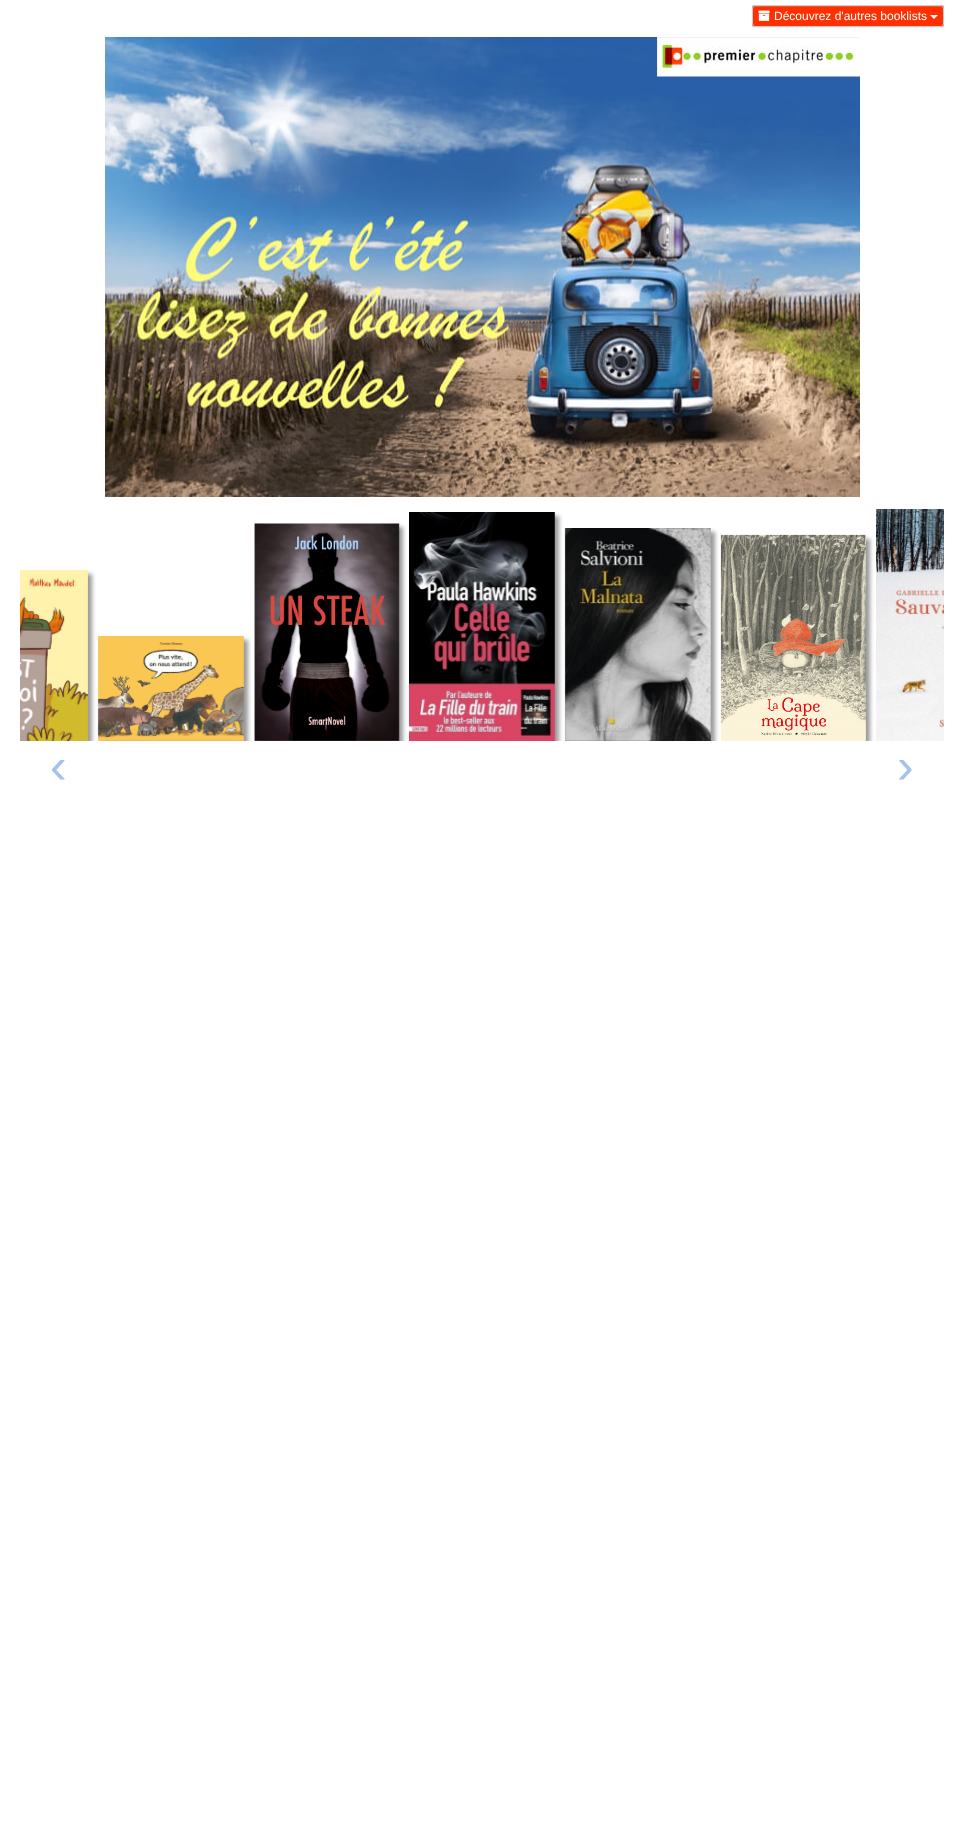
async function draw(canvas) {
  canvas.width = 964
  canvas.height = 1823
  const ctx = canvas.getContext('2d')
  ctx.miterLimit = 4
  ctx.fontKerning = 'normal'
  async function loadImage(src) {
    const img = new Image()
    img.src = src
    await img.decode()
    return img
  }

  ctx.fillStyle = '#fff'
  ctx.fillRect(0, 0, 964, 1823)
  ctx.fillStyle = '#00000012'
  ctx.filter = 'blur(0.5px)'
  ctx.beginPath()
  ctx.roundRect(752, 6, 192, 22, 3)
  ctx.fill()
  ctx.filter = 'none'
  ctx.fillStyle = '#ff3000'
  ctx.beginPath()
  ctx.roundRect(752, 5, 192, 22, 3)
  ctx.fill()
  ctx.fillStyle = '#ff4f26'
  ctx.beginPath()
  ctx.moveTo(755, 7)
  ctx.lineTo(941, 7)
  ctx.lineTo(943, 8)
  ctx.lineTo(943, 9)
  ctx.lineTo(943, 8)
  ctx.bezierCurveTo(943, 7, 942, 6, 941, 6)
  ctx.lineTo(755, 6)
  ctx.bezierCurveTo(754, 6, 753, 7, 753, 8)
  ctx.lineTo(753, 9)
  ctx.bezierCurveTo(753, 8, 754, 7, 755, 7)
  ctx.closePath()
  ctx.fill()
  ctx.beginPath()
  ctx.roundRect(752.5, 5.5, 191, 21, 2.5)
  ctx.strokeStyle = '#ccc'
  ctx.stroke()
  ctx.drawImage(await loadImage('image0.png'), 758, 10, 12, 11)
  ctx.font = '12px Liberation Sans'
  ctx.fillStyle = '#fff'
  ctx.fillText('Découvrez d\'autres booklists', 774, 20)
  ctx.beginPath()
  ctx.moveTo(930, 15)
  ctx.lineTo(938, 15)
  ctx.lineTo(934, 19)
  ctx.closePath()
  ctx.fill()
  ctx.drawImage(await loadImage('image1.png'), 105, 37, 755, 460)
  ctx.save()
  ctx.beginPath()
  ctx.rect(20, 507, 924, 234)
  ctx.clip()
  ctx.fillStyle = '#999'
  ctx.filter = 'blur(2px)'
  ctx.beginPath()
  ctx.rect(-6, 574, 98, 171)
  ctx.fill()
  ctx.filter = 'none'
  ctx.restore()
  ctx.drawImage(await loadImage('image2.png'), 20, 570, 68, 171)
  ctx.save()
  ctx.beginPath()
  ctx.rect(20, 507, 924, 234)
  ctx.clip()
  ctx.fillStyle = '#999'
  ctx.filter = 'blur(2px)'
  ctx.beginPath()
  ctx.rect(102, 640, 146, 105)
  ctx.fill()
  ctx.filter = 'none'
  ctx.restore()
  ctx.drawImage(await loadImage('image3.png'), 97, 636, 147, 105)
  ctx.save()
  ctx.beginPath()
  ctx.rect(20, 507, 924, 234)
  ctx.clip()
  ctx.fillStyle = '#999'
  ctx.filter = 'blur(2px)'
  ctx.beginPath()
  ctx.rect(258, 527, 145, 218)
  ctx.fill()
  ctx.filter = 'none'
  ctx.restore()
  ctx.drawImage(await loadImage('image4.png'), 254, 523, 146, 218)
  ctx.save()
  ctx.beginPath()
  ctx.rect(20, 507, 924, 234)
  ctx.clip()
  ctx.fillStyle = '#999'
  ctx.filter = 'blur(2px)'
  ctx.beginPath()
  ctx.rect(413, 516, 146, 229)
  ctx.fill()
  ctx.filter = 'none'
  ctx.restore()
  ctx.drawImage(await loadImage('image5.png'), 409, 512, 146, 229)
  ctx.save()
  ctx.beginPath()
  ctx.rect(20, 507, 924, 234)
  ctx.clip()
  ctx.fillStyle = '#999'
  ctx.filter = 'blur(2px)'
  ctx.beginPath()
  ctx.rect(569, 532, 146, 213)
  ctx.fill()
  ctx.filter = 'none'
  ctx.restore()
  ctx.drawImage(await loadImage('image6.png'), 564, 528, 147, 213)
  ctx.save()
  ctx.beginPath()
  ctx.rect(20, 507, 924, 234)
  ctx.clip()
  ctx.fillStyle = '#999'
  ctx.filter = 'blur(2px)'
  ctx.beginPath()
  ctx.rect(725, 539, 145, 206)
  ctx.fill()
  ctx.filter = 'none'
  ctx.restore()
  ctx.drawImage(await loadImage('image7.png'), 720, 534, 146, 207)
  ctx.drawImage(await loadImage('image8.png'), 876, 509, 68, 232)
  ctx.font = '50px Liberation Sans'
  ctx.fillStyle = '#a6c1ec'
  ctx.fillText('‹', 50, 783)
  ctx.fillText('›', 897, 783)
}

draw(document.querySelector('canvas'))
